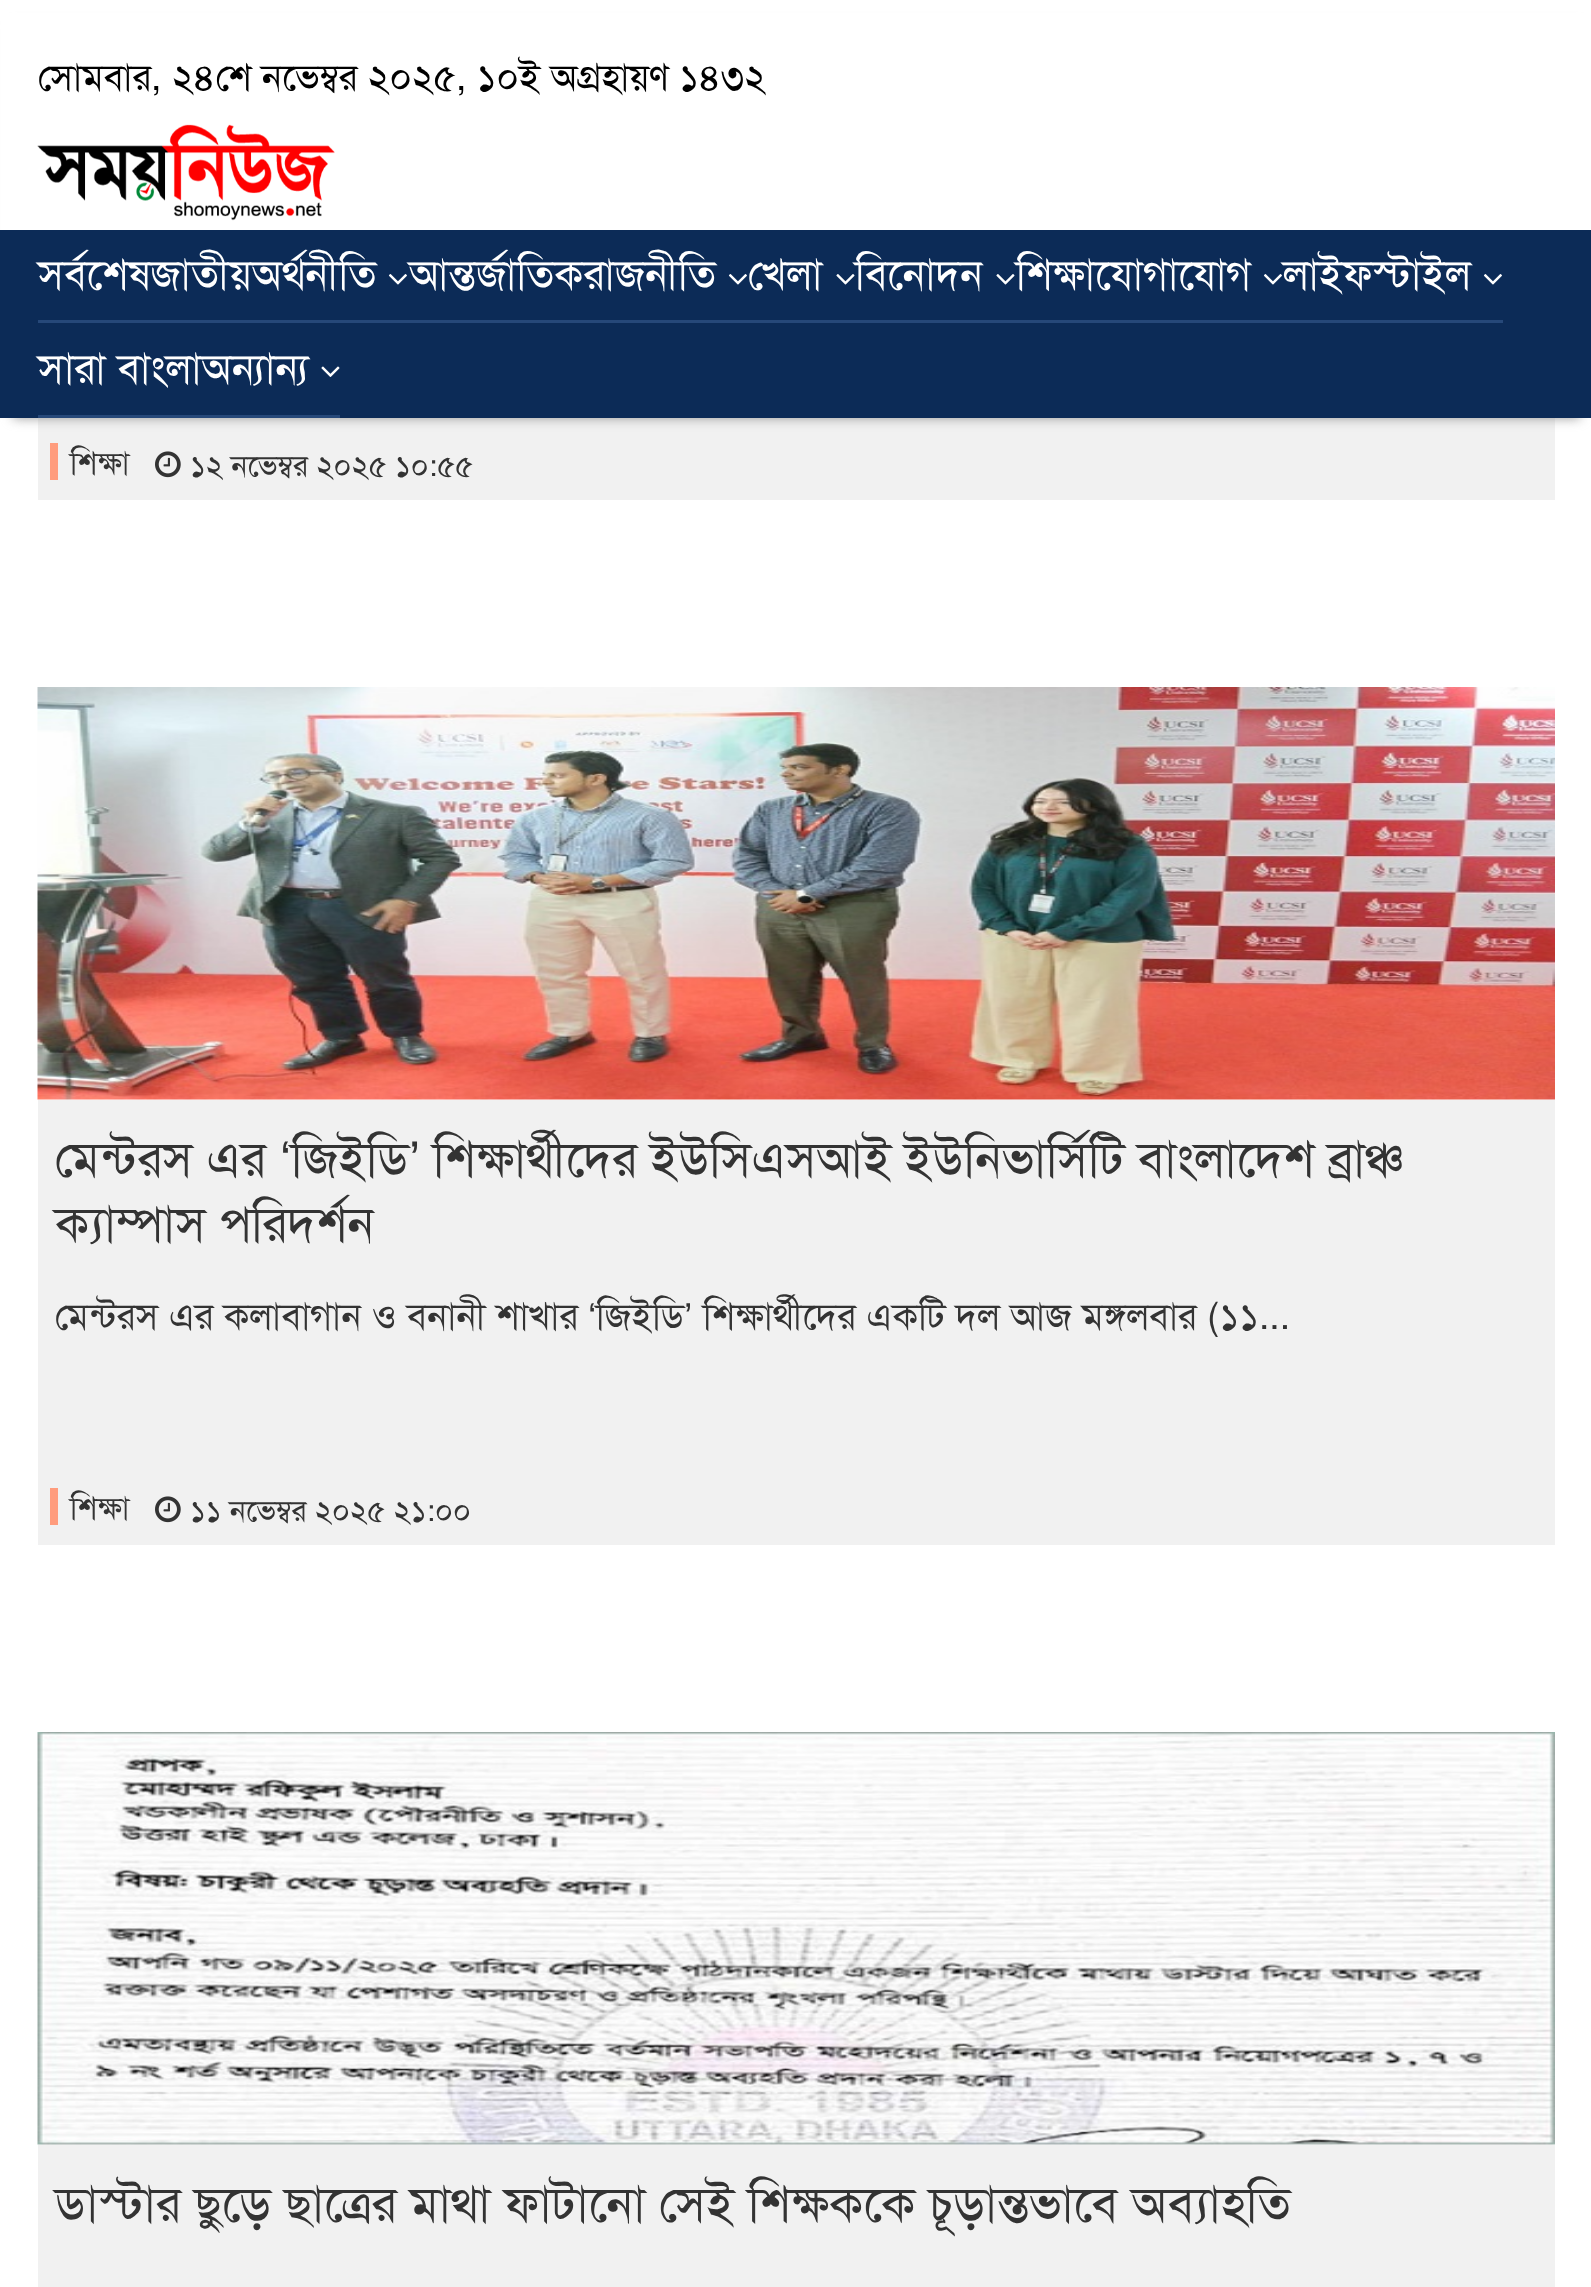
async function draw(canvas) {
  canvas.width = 1591
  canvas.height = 2287
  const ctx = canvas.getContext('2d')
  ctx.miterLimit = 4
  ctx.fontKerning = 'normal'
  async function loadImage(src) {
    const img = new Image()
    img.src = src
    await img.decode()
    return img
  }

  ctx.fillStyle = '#fff'
  ctx.fillRect(0, 0, 1591, 2287)
  ctx.fillStyle = '#f1f1f1'
  ctx.fillRect(38, 418, 1517, 82)
  ctx.fillStyle = '#989898'
  ctx.filter = 'blur(6px)'
  ctx.beginPath()
  ctx.rect(13, 25, 1567, 393)
  ctx.fill()
  ctx.filter = 'none'
  ctx.fillStyle = '#fff'
  ctx.fillRect(1, 13, 1590, 217)
  ctx.font = '37.5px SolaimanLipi'
  ctx.fillStyle = '#000'
  ctx.fillText('সোমবার, ২৪শে নভেম্বর ২০২৫, ১০ই অগ্রহায়ণ ১৪৩২', 38, 90)
  ctx.drawImage(await loadImage('image0.png'), 37, 124, 298, 97)
  ctx.fillStyle = '#0c2b57'
  ctx.fillRect(0, 230, 1591, 188)
  ctx.fillStyle = '#264879'
  ctx.fillRect(38, 320, 212, 3)
  ctx.font = '42.5px SolaimanLipi'
  ctx.fillStyle = '#fff'
  ctx.fillText('সর্বশেষজাতীয়অর্থনীতি', 38, 289)
  ctx.fillText('আন্তর্জাতিকরাজনীতি', 409, 289)
  ctx.drawImage(await loadImage('image1.png'), 388, 274, 19, 11)
  ctx.fillStyle = '#264879'
  ctx.fillRect(250, 320, 605, 3)
  ctx.drawImage(await loadImage('image1.png'), 728, 274, 19, 11)
  ctx.fillStyle = '#fff'
  ctx.fillText('খেলা', 748, 289)
  ctx.drawImage(await loadImage('image2.png'), 836, 274, 19, 11)
  ctx.fillText('বিনোদন', 855, 289)
  ctx.fillText('শিক্ষাযোগাযোগ', 1016, 289)
  ctx.drawImage(await loadImage('image2.png'), 996, 274, 19, 11)
  ctx.fillStyle = '#264879'
  ctx.fillRect(855, 320, 648, 3)
  ctx.drawImage(await loadImage('image1.png'), 1263, 274, 19, 11)
  ctx.fillStyle = '#fff'
  ctx.fillText('লাইফস্টাইল', 1283, 289)
  ctx.drawImage(await loadImage('image1.png'), 1483, 274, 19, 11)
  ctx.fillStyle = '#264879'
  ctx.fillRect(38, 415, 302, 3)
  ctx.fillStyle = '#fff'
  ctx.fillText('সারা বাংলাঅন্যান্য', 38, 383)
  ctx.drawImage(await loadImage('image3.png'), 321, 366, 19, 11)
  ctx.fillStyle = '#ff9c7d'
  ctx.fillRect(50, 443, 8, 37)
  ctx.font = '32px SolaimanLipi'
  ctx.fillStyle = '#333'
  ctx.fillText('শিক্ষা', 70, 474)
  ctx.drawImage(await loadImage('image4.png'), 155, 451, 26, 27)
  ctx.font = '30px SolaimanLipi'
  ctx.fillText('১২ নভেম্বর ২০২৫ ১০:৫৫', 190, 476)
  ctx.fillStyle = '#f1f1f1'
  ctx.fillRect(38, 1100, 1517, 445)
  ctx.drawImage(await loadImage('image5.png'), 37, 687, 1518, 413)
  ctx.wordSpacing = '-0.5px'
  ctx.font = '50px SolaimanLipi'
  ctx.fillStyle = '#333'
  ctx.fillText('মেন্টরস এর', 55, 1176)
  ctx.wordSpacing = '0px'
  ctx.font = '50px Liberation Sans'
  ctx.fillText('‘', 280, 1176)
  ctx.font = '50px SolaimanLipi'
  ctx.fillText('জিইডি', 291, 1176)
  ctx.font = '50px Liberation Sans'
  ctx.fillText('’', 409, 1176)
  ctx.wordSpacing = '-0.5px'
  ctx.font = '50px SolaimanLipi'
  ctx.fillText('শিক্ষার্থীদের ইউসিএসআই ইউনিভার্সিটি বাংলাদেশ ব্রাঞ্চ', 433, 1176)
  ctx.wordSpacing = '0px'
  ctx.fillText('ক্যাম্পাস পরিদর্শন', 55, 1241)
  ctx.font = '37.5px SolaimanLipi'
  ctx.fillText('মেন্টরস এর কলাবাগান ও বনানী শাখার', 55, 1329)
  ctx.font = '37.5px Liberation Sans'
  ctx.fillText('‘', 588, 1329)
  ctx.font = '37.5px SolaimanLipi'
  ctx.fillText('জিইডি', 596, 1329)
  ctx.font = '37.5px Liberation Sans'
  ctx.fillText('’', 684, 1329)
  ctx.font = '37.5px SolaimanLipi'
  ctx.fillText('শিক্ষার্থীদের একটি দল আজ মঙ্গলবার (১১...', 703, 1329)
  ctx.fillStyle = '#ff9c7d'
  ctx.fillRect(50, 1488, 8, 37)
  ctx.font = '32px SolaimanLipi'
  ctx.fillStyle = '#333'
  ctx.fillText('শিক্ষা', 70, 1519)
  ctx.drawImage(await loadImage('image4.png'), 155, 1496, 26, 27)
  ctx.font = '30px SolaimanLipi'
  ctx.fillText('১১ নভেম্বর ২০২৫ ২১:০০', 190, 1521)
  ctx.fillStyle = '#f1f1f1'
  ctx.fillRect(38, 2145, 1517, 142)
  ctx.drawImage(await loadImage('image6.png'), 37, 1732, 1518, 413)
  ctx.font = '50px SolaimanLipi'
  ctx.fillStyle = '#333'
  ctx.fillText('ডাস্টার ছুড়ে ছাত্রের মাথা ফাটানো সেই শিক্ষককে চূড়ান্তভাবে অব্যাহতি', 55, 2221)
}

draw(document.querySelector('canvas'))
